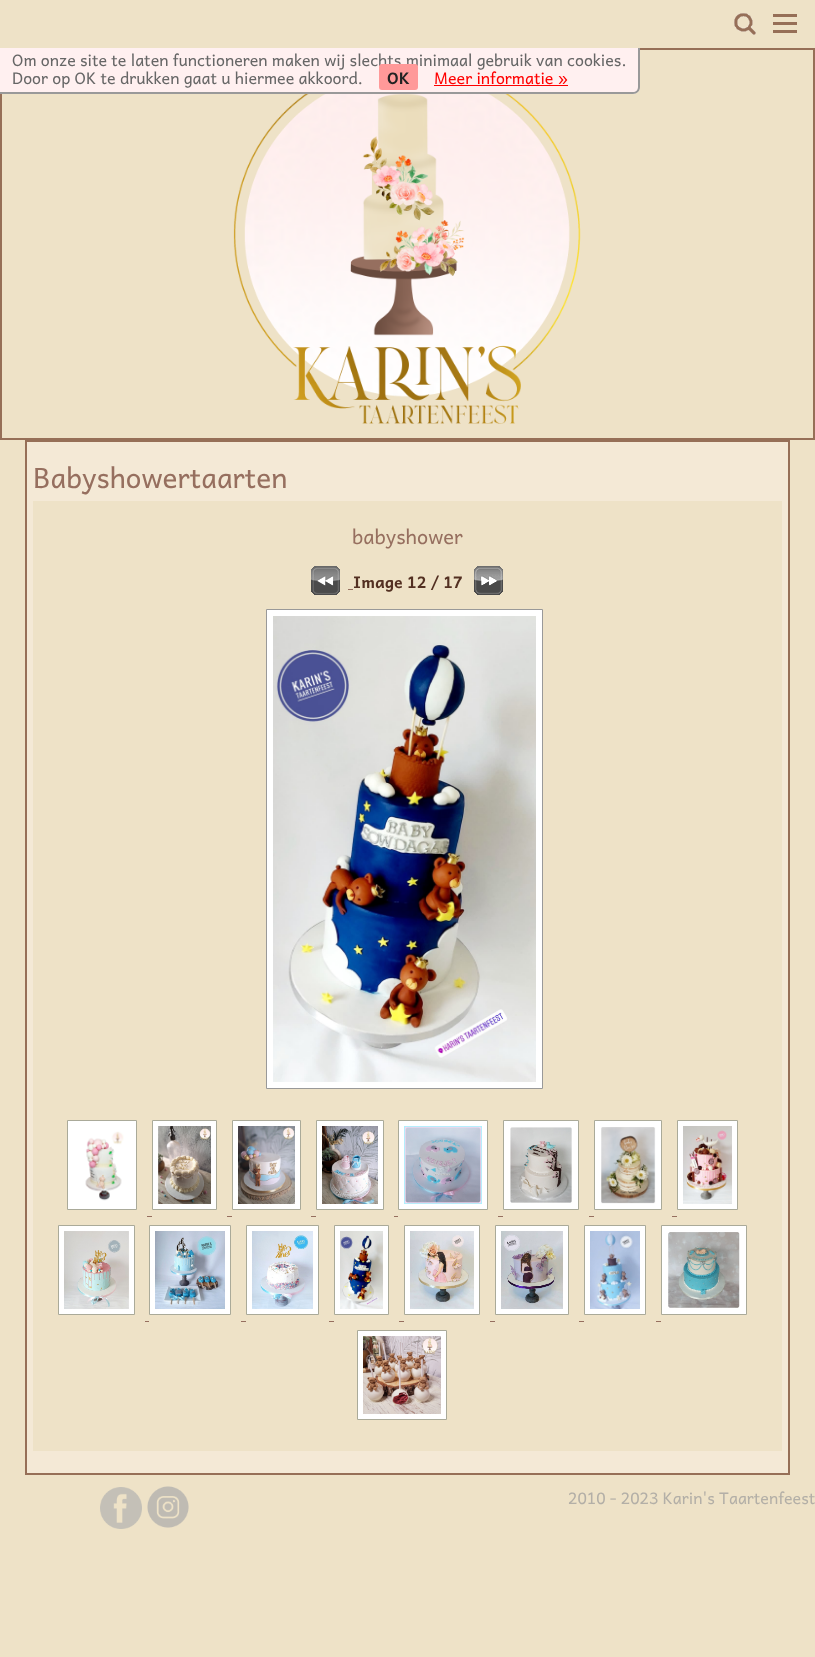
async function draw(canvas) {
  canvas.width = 815
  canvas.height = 1657
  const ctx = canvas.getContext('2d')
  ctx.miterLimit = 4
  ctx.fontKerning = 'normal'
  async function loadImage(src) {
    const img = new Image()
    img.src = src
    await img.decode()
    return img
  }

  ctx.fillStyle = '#eee2c7'
  ctx.fillRect(0, 0, 815, 1657)
  ctx.strokeStyle = '#966f57'
  ctx.lineWidth = 2
  ctx.strokeRect(1, 49, 813, 390)
  ctx.fillStyle = '#fff0f0'
  ctx.beginPath()
  ctx.roundRect(0, 0, 640, 94, [0, 0, 7, 0])
  ctx.fill()
  ctx.fillStyle = '#999'
  ctx.beginPath()
  ctx.moveTo(0, 0)
  ctx.lineTo(640, 0)
  ctx.lineTo(640, 87)
  ctx.bezierCurveTo(640, 91, 637, 94, 633, 94)
  ctx.lineTo(0, 94)
  ctx.closePath()
  ctx.moveTo(0, 0)
  ctx.lineTo(638, 0)
  ctx.lineTo(638, 87)
  ctx.bezierCurveTo(638, 90, 636, 92, 633, 92)
  ctx.lineTo(0, 92)
  ctx.closePath()
  ctx.fill('evenodd')
  ctx.fillStyle = '#eee2c7'
  ctx.fillRect(0, 0, 640, 48)
  ctx.drawImage(await loadImage('image0.png'), 734, 13, 22, 22)
  ctx.drawImage(await loadImage('image1.png'), 773, 14, 24, 19)
  ctx.font = '16px Andika'
  ctx.fillStyle = '#666'
  ctx.fillText('Om onze site te laten functioneren maken wij slechts minimaal gebruik van cookies.', 12, 66)
  ctx.fillText('Door op OK te drukken gaat u hiermee akkoord.', 12, 84)
  ctx.fillStyle = '#f99'
  ctx.beginPath()
  ctx.roundRect(379, 64, 39, 26, 3)
  ctx.fill()
  ctx.font = 'bold 16px Andika'
  ctx.fillStyle = '#222'
  ctx.fillText('OK', 387, 84)
  ctx.font = '16px Andika'
  ctx.fillStyle = '#f00'
  ctx.fillText('Meer informatie »', 434, 84)
  ctx.fillRect(434, 85, 134, 1)
  ctx.drawImage(await loadImage('image2.png'), 233, 94, 348, 330)
  ctx.fillStyle = '#f4e9d6'
  ctx.beginPath()
  ctx.rect(26, 441, 763, 1033)
  ctx.fill()
  ctx.stroke()
  ctx.font = '28px Andika'
  ctx.fillStyle = '#966f5f'
  ctx.fillText('Babyshowertaarten', 33, 488)
  ctx.fillStyle = '#eee2c7'
  ctx.fillRect(33, 501, 749, 950)
  ctx.font = '20px Andika'
  ctx.fillStyle = '#966f5f'
  ctx.fillText('babyshower', 352, 544)
  ctx.drawImage(await loadImage('image3.png'), 311, 566, 29, 29)
  ctx.fillRect(348, 589, 5, 1)
  ctx.font = 'bold 16px Andika'
  ctx.fillStyle = '#533022'
  ctx.fillText('Image 12 / 17', 353, 588)
  ctx.drawImage(await loadImage('image4.png'), 474, 566, 29, 29)
  ctx.fillStyle = '#fff'
  ctx.beginPath()
  ctx.rect(266.5, 609.5, 276, 479)
  ctx.fill()
  ctx.strokeStyle = '#999'
  ctx.lineWidth = 1
  ctx.stroke()
  ctx.drawImage(await loadImage('image5.png'), 273, 616, 263, 466)
  ctx.beginPath()
  ctx.rect(67.5, 1120.5, 69, 89)
  ctx.fill()
  ctx.strokeStyle = '#aa9'
  ctx.stroke()
  ctx.beginPath()
  ctx.rect(152.5, 1120.5, 64, 89)
  ctx.fill()
  ctx.stroke()
  ctx.beginPath()
  ctx.rect(232.5, 1120.5, 68, 89)
  ctx.fill()
  ctx.stroke()
  ctx.beginPath()
  ctx.rect(316.5, 1120.5, 67, 89)
  ctx.fill()
  ctx.stroke()
  ctx.beginPath()
  ctx.rect(398.5, 1120.5, 89, 89)
  ctx.fill()
  ctx.stroke()
  ctx.beginPath()
  ctx.rect(503.5, 1120.5, 75, 89)
  ctx.fill()
  ctx.stroke()
  ctx.beginPath()
  ctx.rect(594.5, 1120.5, 67, 89)
  ctx.fill()
  ctx.stroke()
  ctx.beginPath()
  ctx.rect(677.5, 1120.5, 60, 89)
  ctx.fill()
  ctx.stroke()
  ctx.drawImage(await loadImage('image6.png'), 85, 1131, 39, 70)
  ctx.drawImage(await loadImage('image7.png'), 158, 1126, 53, 78)
  ctx.drawImage(await loadImage('image8.png'), 238, 1126, 57, 78)
  ctx.drawImage(await loadImage('image9.png'), 322, 1126, 56, 78)
  ctx.drawImage(await loadImage('image10.png'), 404, 1126, 78, 78)
  ctx.drawImage(await loadImage('image11.png'), 510, 1127, 62, 76)
  ctx.drawImage(await loadImage('image12.png'), 601, 1127, 55, 77)
  ctx.drawImage(await loadImage('image13.png'), 683, 1126, 49, 78)
  ctx.fillStyle = '#966f5f'
  ctx.fillRect(147, 1216, 5, 1)
  ctx.fillRect(227, 1216, 5, 1)
  ctx.fillRect(311, 1216, 5, 1)
  ctx.fillRect(394, 1216, 4, 1)
  ctx.fillRect(498, 1216, 5, 1)
  ctx.fillRect(589, 1216, 5, 1)
  ctx.fillRect(672, 1216, 5, 1)
  ctx.fillStyle = '#fff'
  ctx.beginPath()
  ctx.rect(58.5, 1225.5, 76, 89)
  ctx.fill()
  ctx.stroke()
  ctx.beginPath()
  ctx.rect(149.5, 1225.5, 81, 89)
  ctx.fill()
  ctx.stroke()
  ctx.beginPath()
  ctx.rect(246.5, 1225.5, 72, 89)
  ctx.fill()
  ctx.stroke()
  ctx.beginPath()
  ctx.rect(334.5, 1225.5, 54, 89)
  ctx.fill()
  ctx.stroke()
  ctx.beginPath()
  ctx.rect(404.5, 1225.5, 75, 89)
  ctx.fill()
  ctx.stroke()
  ctx.beginPath()
  ctx.rect(495.5, 1225.5, 73, 89)
  ctx.fill()
  ctx.stroke()
  ctx.beginPath()
  ctx.rect(584.5, 1225.5, 61, 89)
  ctx.fill()
  ctx.stroke()
  ctx.beginPath()
  ctx.rect(661.5, 1225.5, 85, 89)
  ctx.fill()
  ctx.stroke()
  ctx.drawImage(await loadImage('image14.png'), 64, 1231, 65, 78)
  ctx.drawImage(await loadImage('image15.png'), 155, 1231, 70, 78)
  ctx.drawImage(await loadImage('image16.png'), 252, 1231, 61, 78)
  ctx.drawImage(await loadImage('image17.png'), 340, 1231, 43, 78)
  ctx.drawImage(await loadImage('image18.png'), 410, 1231, 64, 78)
  ctx.drawImage(await loadImage('image19.png'), 501, 1231, 62, 78)
  ctx.drawImage(await loadImage('image20.png'), 590, 1231, 50, 78)
  ctx.drawImage(await loadImage('image21.png'), 668, 1232, 72, 76)
  ctx.fillStyle = '#966f5f'
  ctx.fillRect(145, 1321, 4, 1)
  ctx.fillRect(241, 1321, 5, 1)
  ctx.fillRect(329, 1321, 5, 1)
  ctx.fillRect(399, 1321, 5, 1)
  ctx.fillRect(490, 1321, 5, 1)
  ctx.fillRect(579, 1321, 5, 1)
  ctx.fillRect(656, 1321, 5, 1)
  ctx.fillStyle = '#fff'
  ctx.beginPath()
  ctx.rect(357.5, 1330.5, 89, 89)
  ctx.fill()
  ctx.stroke()
  ctx.drawImage(await loadImage('image22.png'), 363, 1336, 78, 78)
  ctx.drawImage(await loadImage('image23.png'), 100, 1487, 42, 42)
  ctx.drawImage(await loadImage('image24.png'), 147, 1486, 42, 42)
  ctx.font = '16px Andika'
  ctx.fillStyle = '#b3afa7'
  ctx.fillText('2010 - 2023 Karin\'s Taartenfeest', 568, 1504)
}

draw(document.querySelector('canvas'))
